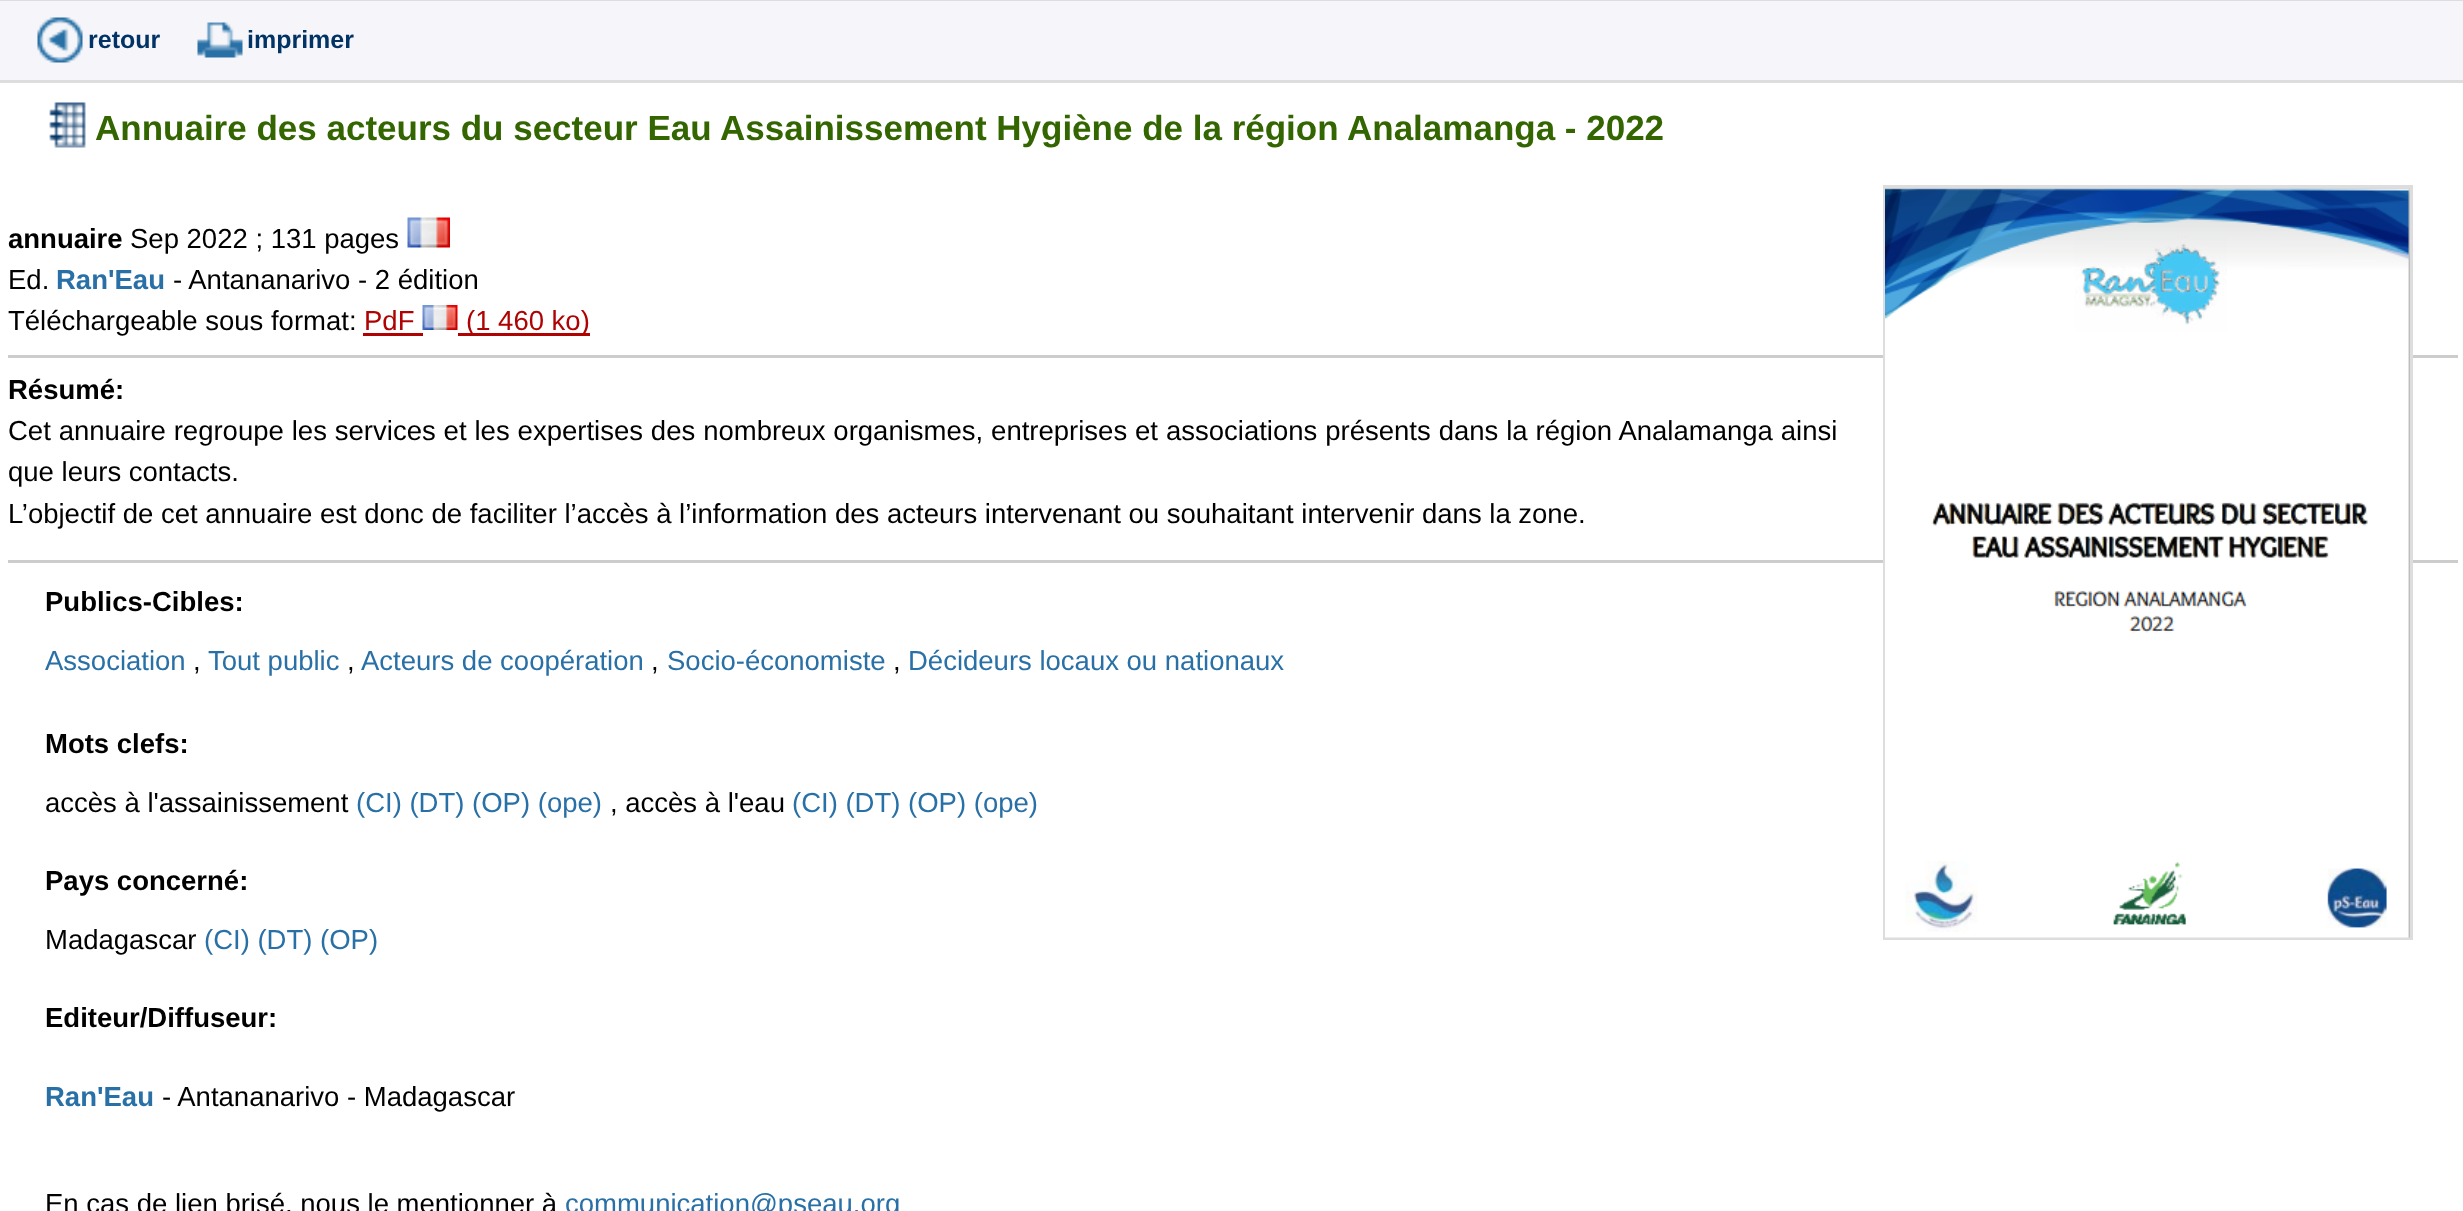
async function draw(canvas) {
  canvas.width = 2463
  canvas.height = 1211
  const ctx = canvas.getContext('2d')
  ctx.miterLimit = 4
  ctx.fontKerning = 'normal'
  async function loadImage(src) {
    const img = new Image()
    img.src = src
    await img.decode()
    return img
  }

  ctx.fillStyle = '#fff'
  ctx.fillRect(0, 0, 2463, 1211)
  ctx.fillStyle = '#f6f6fa'
  ctx.fillRect(0, 1, 2463, 79)
  ctx.fillStyle = '#ddd'
  ctx.fillRect(0, 0, 2463, 1)
  ctx.fillRect(0, 80, 2463, 3)
  ctx.drawImage(await loadImage('image0.png'), 37, 17, 46, 46)
  ctx.font = 'bold 25px Liberation Sans'
  ctx.fillStyle = '#013366'
  ctx.fillText('retour', 88, 48)
  ctx.drawImage(await loadImage('image1.png'), 197, 22, 46, 36)
  ctx.fillText('imprimer', 247, 48)
  ctx.drawImage(await loadImage('image2.png'), 49, 102, 37, 46)
  ctx.font = 'bold 35px Liberation Sans'
  ctx.fillStyle = '#360'
  ctx.fillText('Annuaire des acteurs du secteur Eau Assainissement Hygiène de la région Analamanga - 2022', 95, 140)
  ctx.font = 'bold 27.5px Liberation Sans'
  ctx.fillStyle = '#000'
  ctx.fillText('annuaire', 8, 248)
  ctx.font = '27.5px Liberation Sans'
  ctx.fillText('Sep 2022 ; 131 pages', 130, 248)
  ctx.drawImage(await loadImage('image3.png'), 407, 217, 43, 31)
  ctx.fillStyle = '#ccc'
  ctx.fillRect(8, 355, 2450, 3)
  ctx.fillRect(8, 560, 2450, 3)
  ctx.strokeStyle = '#ddd'
  ctx.lineWidth = 3
  ctx.strokeRect(1884.5, 186.5, 527, 752)
  ctx.drawImage(await loadImage('image4.png'), 1885, 188, 525, 750)
  ctx.fillStyle = '#000'
  ctx.fillText('Ed.', 8, 289)
  ctx.font = 'bold 27.5px Liberation Sans'
  ctx.fillStyle = '#2970a6'
  ctx.fillText('Ran\'Eau', 56, 289)
  ctx.font = '27.5px Liberation Sans'
  ctx.fillStyle = '#000'
  ctx.fillText('- Antananarivo - 2 édition', 173, 289)
  ctx.fillText('Téléchargeable sous format:', 8, 330)
  ctx.fillStyle = '#af0202'
  ctx.fillText('PdF', 364, 330)
  ctx.fillRect(363, 333, 60, 3)
  ctx.drawImage(await loadImage('image5.png'), 422, 305, 36, 25)
  ctx.fillRect(458, 333, 132, 3)
  ctx.fillText('(1 460 ko)', 466, 330)
  ctx.font = 'bold 27.5px Liberation Sans'
  ctx.fillStyle = '#000'
  ctx.fillText('Résumé:', 8, 399)
  ctx.wordSpacing = '0.3px'
  ctx.font = '27.5px Liberation Sans'
  ctx.fillText('Cet annuaire regroupe les services et les expertises des nombreux organismes, entreprises et associations présents dans la région Analamanga ainsi', 8, 440)
  ctx.wordSpacing = '0px'
  ctx.fillText('que leurs contacts.', 8, 481)
  ctx.fillText('L’objectif de cet annuaire est donc de faciliter l’accès à l’information des acteurs intervenant ou souhaitant intervenir dans la zone.', 8, 523)
  ctx.font = 'bold 27.5px Liberation Sans'
  ctx.fillText('Publics-Cibles:', 45, 611)
  ctx.font = '27.5px Liberation Sans'
  ctx.fillStyle = '#2970a6'
  ctx.fillText('Association', 45, 670)
  ctx.fillStyle = '#000'
  ctx.fillText(',', 193, 670)
  ctx.fillStyle = '#2970a6'
  ctx.fillText('Tout public', 208, 670)
  ctx.fillStyle = '#000'
  ctx.fillText(',', 347, 670)
  ctx.fillStyle = '#2970a6'
  ctx.fillText('Acteurs de coopération', 361, 670)
  ctx.fillStyle = '#000'
  ctx.fillText(',', 651, 670)
  ctx.fillStyle = '#2970a6'
  ctx.fillText('Socio-économiste', 667, 670)
  ctx.fillStyle = '#000'
  ctx.fillText(',', 893, 670)
  ctx.fillStyle = '#2970a6'
  ctx.fillText('Décideurs locaux ou nationaux', 908, 670)
  ctx.font = 'bold 27.5px Liberation Sans'
  ctx.fillStyle = '#000'
  ctx.fillText('Mots clefs:', 45, 753)
  ctx.font = '27.5px Liberation Sans'
  ctx.fillText('accès à l\'assainissement', 45, 812)
  ctx.fillStyle = '#2970a6'
  ctx.fillText('(CI) (DT) (OP) (ope)', 356, 812)
  ctx.fillStyle = '#000'
  ctx.fillText(', accès à l\'eau', 610, 812)
  ctx.fillStyle = '#2970a6'
  ctx.fillText('(CI) (DT) (OP) (ope)', 792, 812)
  ctx.font = 'bold 27.5px Liberation Sans'
  ctx.fillStyle = '#000'
  ctx.fillText('Pays concerné:', 45, 890)
  ctx.font = '27.5px Liberation Sans'
  ctx.fillText('Madagascar', 45, 949)
  ctx.fillStyle = '#2970a6'
  ctx.fillText('(CI) (DT) (OP)', 204, 949)
  ctx.font = 'bold 27.5px Liberation Sans'
  ctx.fillStyle = '#000'
  ctx.fillText('Editeur/Diffuseur:', 45, 1027)
  ctx.fillStyle = '#2970a6'
  ctx.fillText('Ran\'Eau', 45, 1106)
  ctx.font = '27.5px Liberation Sans'
  ctx.fillStyle = '#000'
  ctx.fillText('- Antananarivo - Madagascar', 162, 1106)
  ctx.fillText('En cas de lien brisé, nous le mentionner à', 45, 1213)
  ctx.fillStyle = '#2970a6'
  ctx.fillText('communication@pseau.org', 565, 1213)
}

draw(document.querySelector('canvas'))
